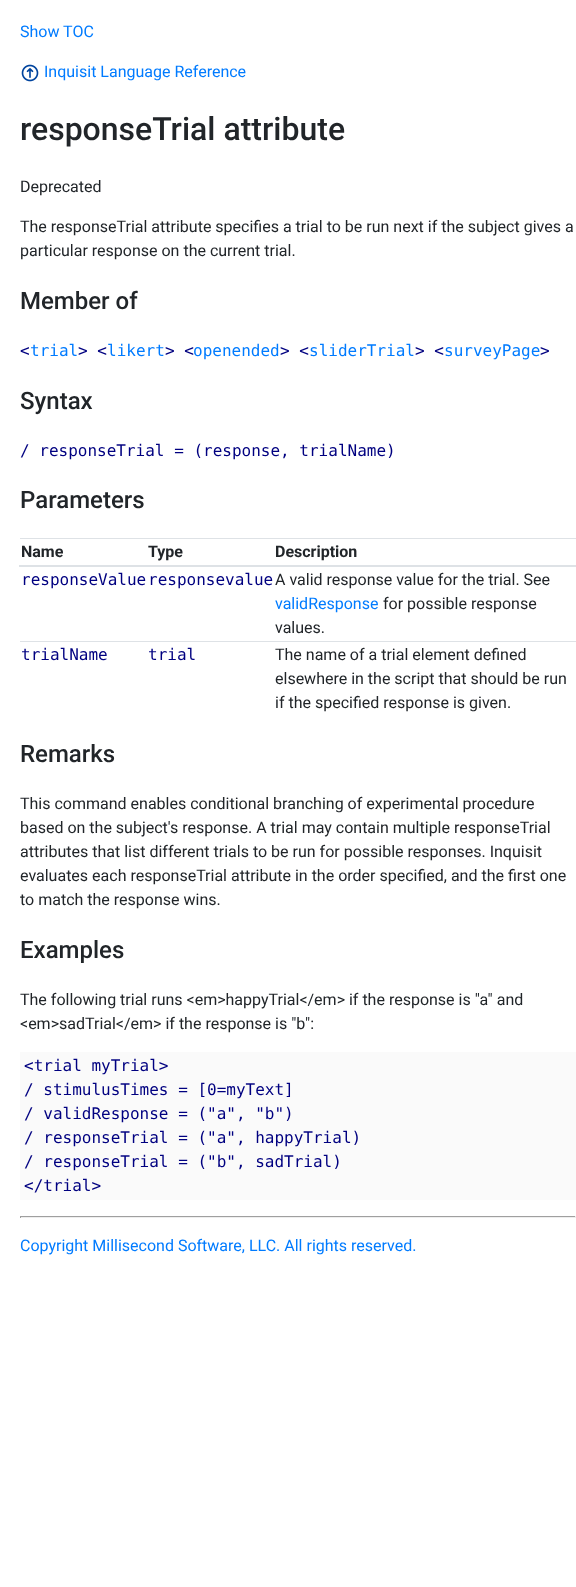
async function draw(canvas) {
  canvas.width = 576
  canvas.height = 1587
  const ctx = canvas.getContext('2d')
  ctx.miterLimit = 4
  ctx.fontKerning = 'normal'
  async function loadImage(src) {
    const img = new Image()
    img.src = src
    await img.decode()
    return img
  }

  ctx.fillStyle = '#fff'
  ctx.fillRect(0, 0, 576, 1587)
  ctx.font = '16px Roboto'
  ctx.fillStyle = '#007bff'
  ctx.fillText('Show TOC', 20, 37)
  ctx.drawImage(await loadImage('image0.png'), 21, 64, 18, 18)
  ctx.fillText('Inquisit Language Reference', 44, 77)
  ctx.font = '500 32px Roboto'
  ctx.fillStyle = '#212529'
  ctx.fillText('responseTrial attribute', 20, 140)
  ctx.font = '16px Roboto'
  ctx.fillText('Deprecated', 20, 192)
  ctx.fillText('The responseTrial attribute specifies a trial to be run next if the subject gives a', 20, 232)
  ctx.fillText('particular response on the current trial.', 20, 256)
  ctx.font = '500 24px Roboto'
  ctx.fillText('Member of', 20, 309)
  ctx.font = '16px DejaVu Sans Mono'
  ctx.fillStyle = '#000080'
  ctx.fillText('<', 20, 356)
  ctx.fillStyle = '#007bff'
  ctx.fillText('trial', 30, 356)
  ctx.fillStyle = '#000080'
  ctx.fillText('> <', 78, 356)
  ctx.fillStyle = '#007bff'
  ctx.fillText('likert', 107, 356)
  ctx.fillStyle = '#000080'
  ctx.fillText('> <', 165, 356)
  ctx.fillStyle = '#007bff'
  ctx.fillText('openended', 193, 356)
  ctx.fillStyle = '#000080'
  ctx.fillText('> <', 280, 356)
  ctx.fillStyle = '#007bff'
  ctx.fillText('sliderTrial', 309, 356)
  ctx.fillStyle = '#000080'
  ctx.fillText('> <', 415, 356)
  ctx.fillStyle = '#007bff'
  ctx.fillText('surveyPage', 444, 356)
  ctx.fillStyle = '#000080'
  ctx.fillText('>', 540, 356)
  ctx.font = '500 24px Roboto'
  ctx.fillStyle = '#212529'
  ctx.fillText('Syntax', 20, 409)
  ctx.font = '16px DejaVu Sans Mono'
  ctx.fillStyle = '#000080'
  ctx.fillText('/ responseTrial = (response, trialName)', 20, 456)
  ctx.font = '500 24px Roboto'
  ctx.fillStyle = '#212529'
  ctx.fillText('Parameters', 20, 508)
  ctx.font = 'bold 16px Roboto'
  ctx.fillText('Name', 21, 557)
  ctx.fillText('Type', 148, 557)
  ctx.fillStyle = '#dee2e6'
  ctx.fillRect(20, 538, 556, 1)
  ctx.fillRect(19, 565, 557, 2)
  ctx.fillStyle = '#212529'
  ctx.fillText('Description', 275, 557)
  ctx.font = '16px DejaVu Sans Mono'
  ctx.fillStyle = '#000080'
  ctx.fillText('responseValue', 21, 585)
  ctx.fillText('responsevalue', 148, 585)
  ctx.font = '16px Roboto'
  ctx.fillStyle = '#212529'
  ctx.fillText('A valid response value for the trial. See', 275, 585)
  ctx.fillStyle = '#007bff'
  ctx.fillText('validResponse', 275, 609)
  ctx.fillStyle = '#212529'
  ctx.fillText('for possible response', 383, 609)
  ctx.fillText('values.', 275, 633)
  ctx.font = '16px DejaVu Sans Mono'
  ctx.fillStyle = '#000080'
  ctx.fillText('trialName', 21, 660)
  ctx.fillText('trial', 148, 660)
  ctx.fillStyle = '#dee2e6'
  ctx.fillRect(20, 641, 556, 1)
  ctx.font = '16px Roboto'
  ctx.fillStyle = '#212529'
  ctx.fillText('The name of a trial element defined', 275, 660)
  ctx.fillText('elsewhere in the script that should be run', 275, 684)
  ctx.fillText('if the specified response is given.', 275, 708)
  ctx.font = '500 24px Roboto'
  ctx.fillText('Remarks', 20, 762)
  ctx.font = '16px Roboto'
  ctx.fillText('This command enables conditional branching of experimental procedure', 20, 809)
  ctx.fillText('based on the subject\'s response. A trial may contain multiple responseTrial', 20, 833)
  ctx.fillText('attributes that list different trials to be run for possible responses. Inquisit', 20, 857)
  ctx.fillText('evaluates each responseTrial attribute in the order specified, and the first one', 20, 881)
  ctx.fillText('to match the response wins.', 20, 905)
  ctx.font = '500 24px Roboto'
  ctx.fillText('Examples', 20, 958)
  ctx.font = '16px Roboto'
  ctx.fillText('The following trial runs <em>happyTrial<\/em> if the response is "a" and', 20, 1005)
  ctx.fillText('<em>sadTrial<\/em> if the response is "b":', 20, 1029)
  ctx.fillStyle = '#fafafa'
  ctx.fillRect(20, 1052, 556, 148)
  ctx.font = '16px DejaVu Sans Mono'
  ctx.fillStyle = '#000080'
  ctx.fillText('<trial myTrial>', 24, 1071)
  ctx.fillText('/ stimulusTimes = [0=myText]', 24, 1095)
  ctx.fillText('/ validResponse = ("a", "b")', 24, 1119)
  ctx.fillText('/ responseTrial = ("a", happyTrial)', 24, 1143)
  ctx.fillText('/ responseTrial = ("b", sadTrial)', 24, 1167)
  ctx.fillText('<\/trial>', 24, 1191)
  ctx.fillStyle = '#9f9f9f'
  ctx.fillRect(20, 1216, 556, 1)
  ctx.fillStyle = '#eee'
  ctx.fillRect(575, 1216, 1, 2)
  ctx.fillRect(20, 1217, 556, 1)
  ctx.fillStyle = '#9f9f9f'
  ctx.fillRect(20, 1216, 1, 2)
  ctx.font = '16px Roboto'
  ctx.fillStyle = '#007bff'
  ctx.fillText('Copyright Millisecond Software, LLC. All rights reserved.', 20, 1251)
}

draw(document.querySelector('canvas'))
